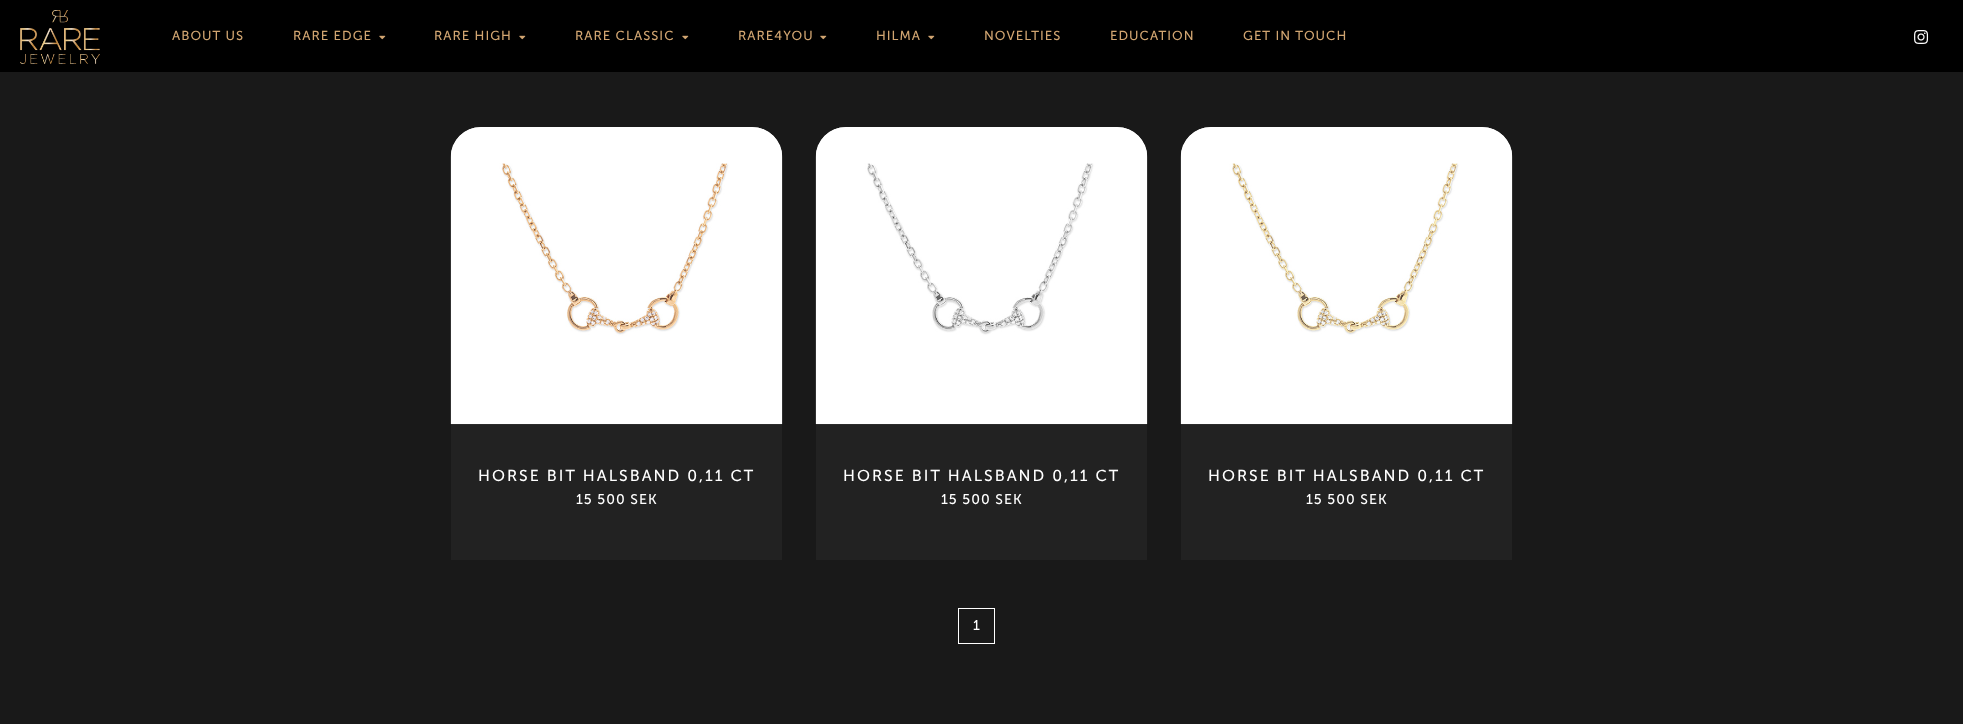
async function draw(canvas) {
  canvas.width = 1963
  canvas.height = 724
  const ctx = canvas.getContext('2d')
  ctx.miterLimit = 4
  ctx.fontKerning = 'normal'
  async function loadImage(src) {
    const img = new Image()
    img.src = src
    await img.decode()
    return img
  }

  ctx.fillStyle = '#191919'
  ctx.fillRect(0, 0, 1963, 724)
  ctx.fillStyle = '#000'
  ctx.fillRect(0, 0, 1963, 72)
  ctx.drawImage(await loadImage('image0.png'), 20, 10, 80, 54)
  ctx.letterSpacing = '1px'
  ctx.font = '13px "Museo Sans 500"'
  ctx.fillStyle = '#d1a571'
  ctx.fillText('ABOUT US', 172, 40)
  ctx.fillText('RARE EDGE', 293, 40)
  ctx.drawImage(await loadImage('image1.png'), 379, 35, 7, 5)
  ctx.fillText('RARE HIGH', 434, 40)
  ctx.drawImage(await loadImage('image1.png'), 519, 35, 7, 5)
  ctx.fillText('RARE CLASSIC', 575, 40)
  ctx.drawImage(await loadImage('image1.png'), 682, 35, 7, 5)
  ctx.fillText('RARE4YOU', 738, 40)
  ctx.drawImage(await loadImage('image1.png'), 820, 35, 7, 5)
  ctx.fillText('HILMA', 876, 40)
  ctx.drawImage(await loadImage('image1.png'), 928, 35, 7, 5)
  ctx.fillText('NOVELTIES', 984, 40)
  ctx.fillText('EDUCATION', 1110, 40)
  ctx.fillText('GET IN TOUCH', 1243, 40)
  ctx.drawImage(await loadImage('image2.png'), 1914, 30, 15, 14)
  ctx.fillStyle = '#fff'
  ctx.beginPath()
  ctx.roundRect(451, 127, 331, 297, [30, 30, 0, 0])
  ctx.fill()
  ctx.fillStyle = '#222'
  ctx.fillRect(451, 424, 331, 136)
  ctx.drawImage(await loadImage('image3.png'), 450, 127, 333, 298)
  ctx.letterSpacing = '2px'
  ctx.font = '15.8px "Museo Sans 500"'
  ctx.fillStyle = '#fff'
  ctx.fillText('HORSE BIT HALSBAND 0,11 CT', 478, 481)
  ctx.letterSpacing = '1px'
  ctx.font = '14px "Museo Sans 500"'
  ctx.fillText('15 500 SEK', 576, 504)
  ctx.beginPath()
  ctx.roundRect(816, 127, 331, 297, [30, 30, 0, 0])
  ctx.fill()
  ctx.fillStyle = '#222'
  ctx.fillRect(816, 424, 331, 136)
  ctx.drawImage(await loadImage('image4.png'), 815, 127, 333, 298)
  ctx.letterSpacing = '2px'
  ctx.font = '15.8px "Museo Sans 500"'
  ctx.fillStyle = '#fff'
  ctx.fillText('HORSE BIT HALSBAND 0,11 CT', 843, 481)
  ctx.letterSpacing = '1px'
  ctx.font = '14px "Museo Sans 500"'
  ctx.fillText('15 500 SEK', 941, 504)
  ctx.beginPath()
  ctx.roundRect(1181, 127, 331, 297, [30, 30, 0, 0])
  ctx.fill()
  ctx.fillStyle = '#222'
  ctx.fillRect(1181, 424, 331, 136)
  ctx.drawImage(await loadImage('image5.png'), 1180, 127, 333, 298)
  ctx.letterSpacing = '2px'
  ctx.font = '15.8px "Museo Sans 500"'
  ctx.fillStyle = '#fff'
  ctx.fillText('HORSE BIT HALSBAND 0,11 CT', 1208, 481)
  ctx.letterSpacing = '1px'
  ctx.font = '14px "Museo Sans 500"'
  ctx.fillText('15 500 SEK', 1306, 504)
  ctx.strokeStyle = '#fff'
  ctx.strokeRect(958.5, 608.5, 36, 35)
  ctx.letterSpacing = '0px'
  ctx.fillText('1', 973, 630)
}

draw(document.querySelector('canvas'))
